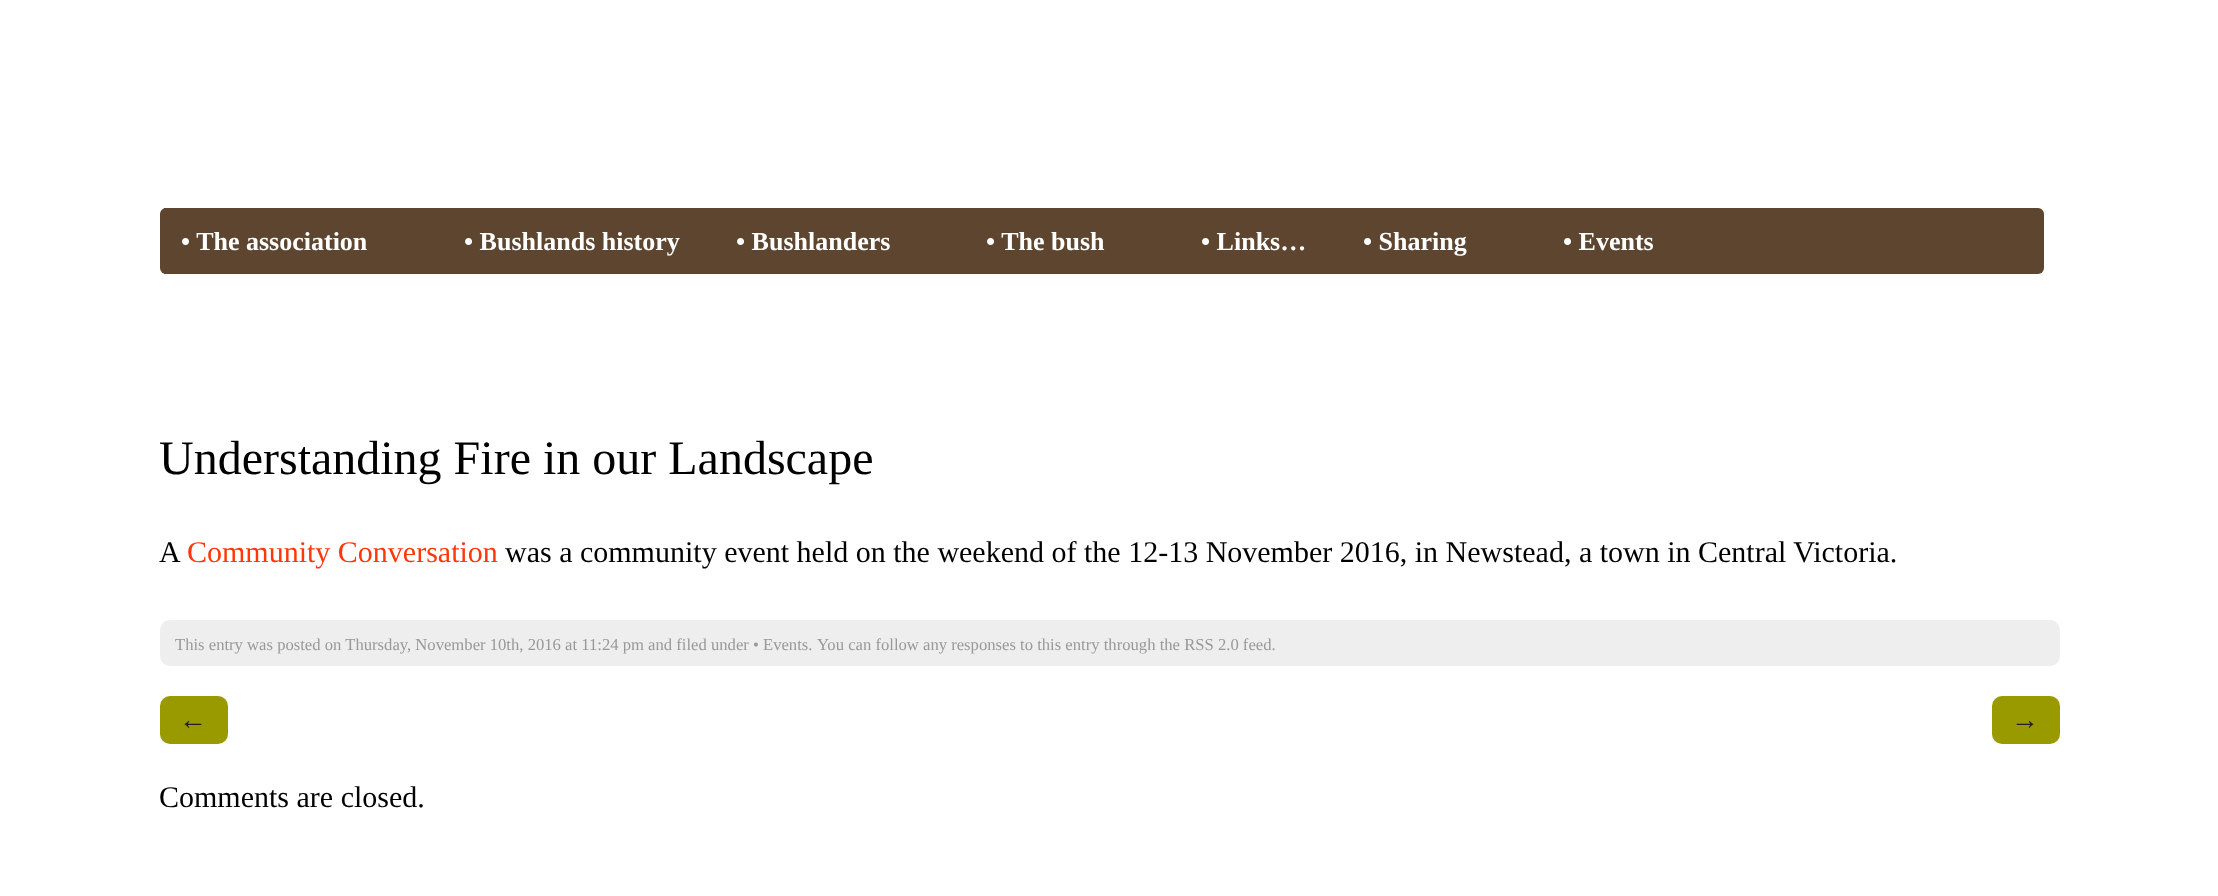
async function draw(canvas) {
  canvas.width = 2218
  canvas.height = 896
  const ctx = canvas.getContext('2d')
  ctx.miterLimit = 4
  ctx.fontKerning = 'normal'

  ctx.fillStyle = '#fff'
  ctx.fillRect(0, 0, 2218, 896)
  ctx.fillStyle = '#5d4530'
  ctx.beginPath()
  ctx.roundRect(160, 208, 1884, 66, 6)
  ctx.fill()
  ctx.fillRect(164, 208, 2, 66)
  ctx.font = 'bold 26px Liberation Serif'
  ctx.fillStyle = '#fff'
  ctx.fillText('• The association', 181, 250)
  ctx.fillText('• Bushlands history', 464, 250)
  ctx.fillText('• Bushlanders', 736, 250)
  ctx.fillText('• The bush', 986, 250)
  ctx.fillText('• Links…', 1201, 250)
  ctx.fillText('• Sharing', 1363, 250)
  ctx.fillText('• Events', 1563, 250)
  ctx.font = '48px Liberation Serif'
  ctx.fillStyle = '#000'
  ctx.fillText('Understanding Fire in our Landscape', 159, 474)
  ctx.font = '30px Liberation Serif'
  ctx.fillText('A', 159, 562)
  ctx.fillStyle = '#ff3706'
  ctx.fillText('Community Conversation', 187, 562)
  ctx.fillStyle = '#000'
  ctx.fillText('was a community event held on the weekend of the 12-13 November 2016, in Newstead, a town in Central Victoria.', 505, 562)
  ctx.fillStyle = '#eee'
  ctx.beginPath()
  ctx.roundRect(160, 620, 1900, 46, 10)
  ctx.fill()
  ctx.font = '16.65px Liberation Serif'
  ctx.fillStyle = '#999'
  ctx.fillText('This entry was posted on Thursday, November 10th, 2016 at 11:24 pm and filed under • Events.', 175, 650)
  ctx.fillText('You can follow any responses to this entry through the RSS 2.0 feed.', 817, 650)
  ctx.fillStyle = '#990'
  ctx.beginPath()
  ctx.roundRect(160, 696, 68, 48, 10)
  ctx.fill()
  ctx.font = 'bold 28px Liberation Sans'
  ctx.fillStyle = '#222'
  ctx.fillText('←', 179, 729)
  ctx.fillStyle = '#990'
  ctx.beginPath()
  ctx.roundRect(1992, 696, 68, 48, 10)
  ctx.fill()
  ctx.fillStyle = '#222'
  ctx.fillText('→', 2011, 729)
  ctx.font = '30px Liberation Serif'
  ctx.fillStyle = '#000'
  ctx.fillText('Comments are closed.', 159, 807)
}

draw(document.querySelector('canvas'))
